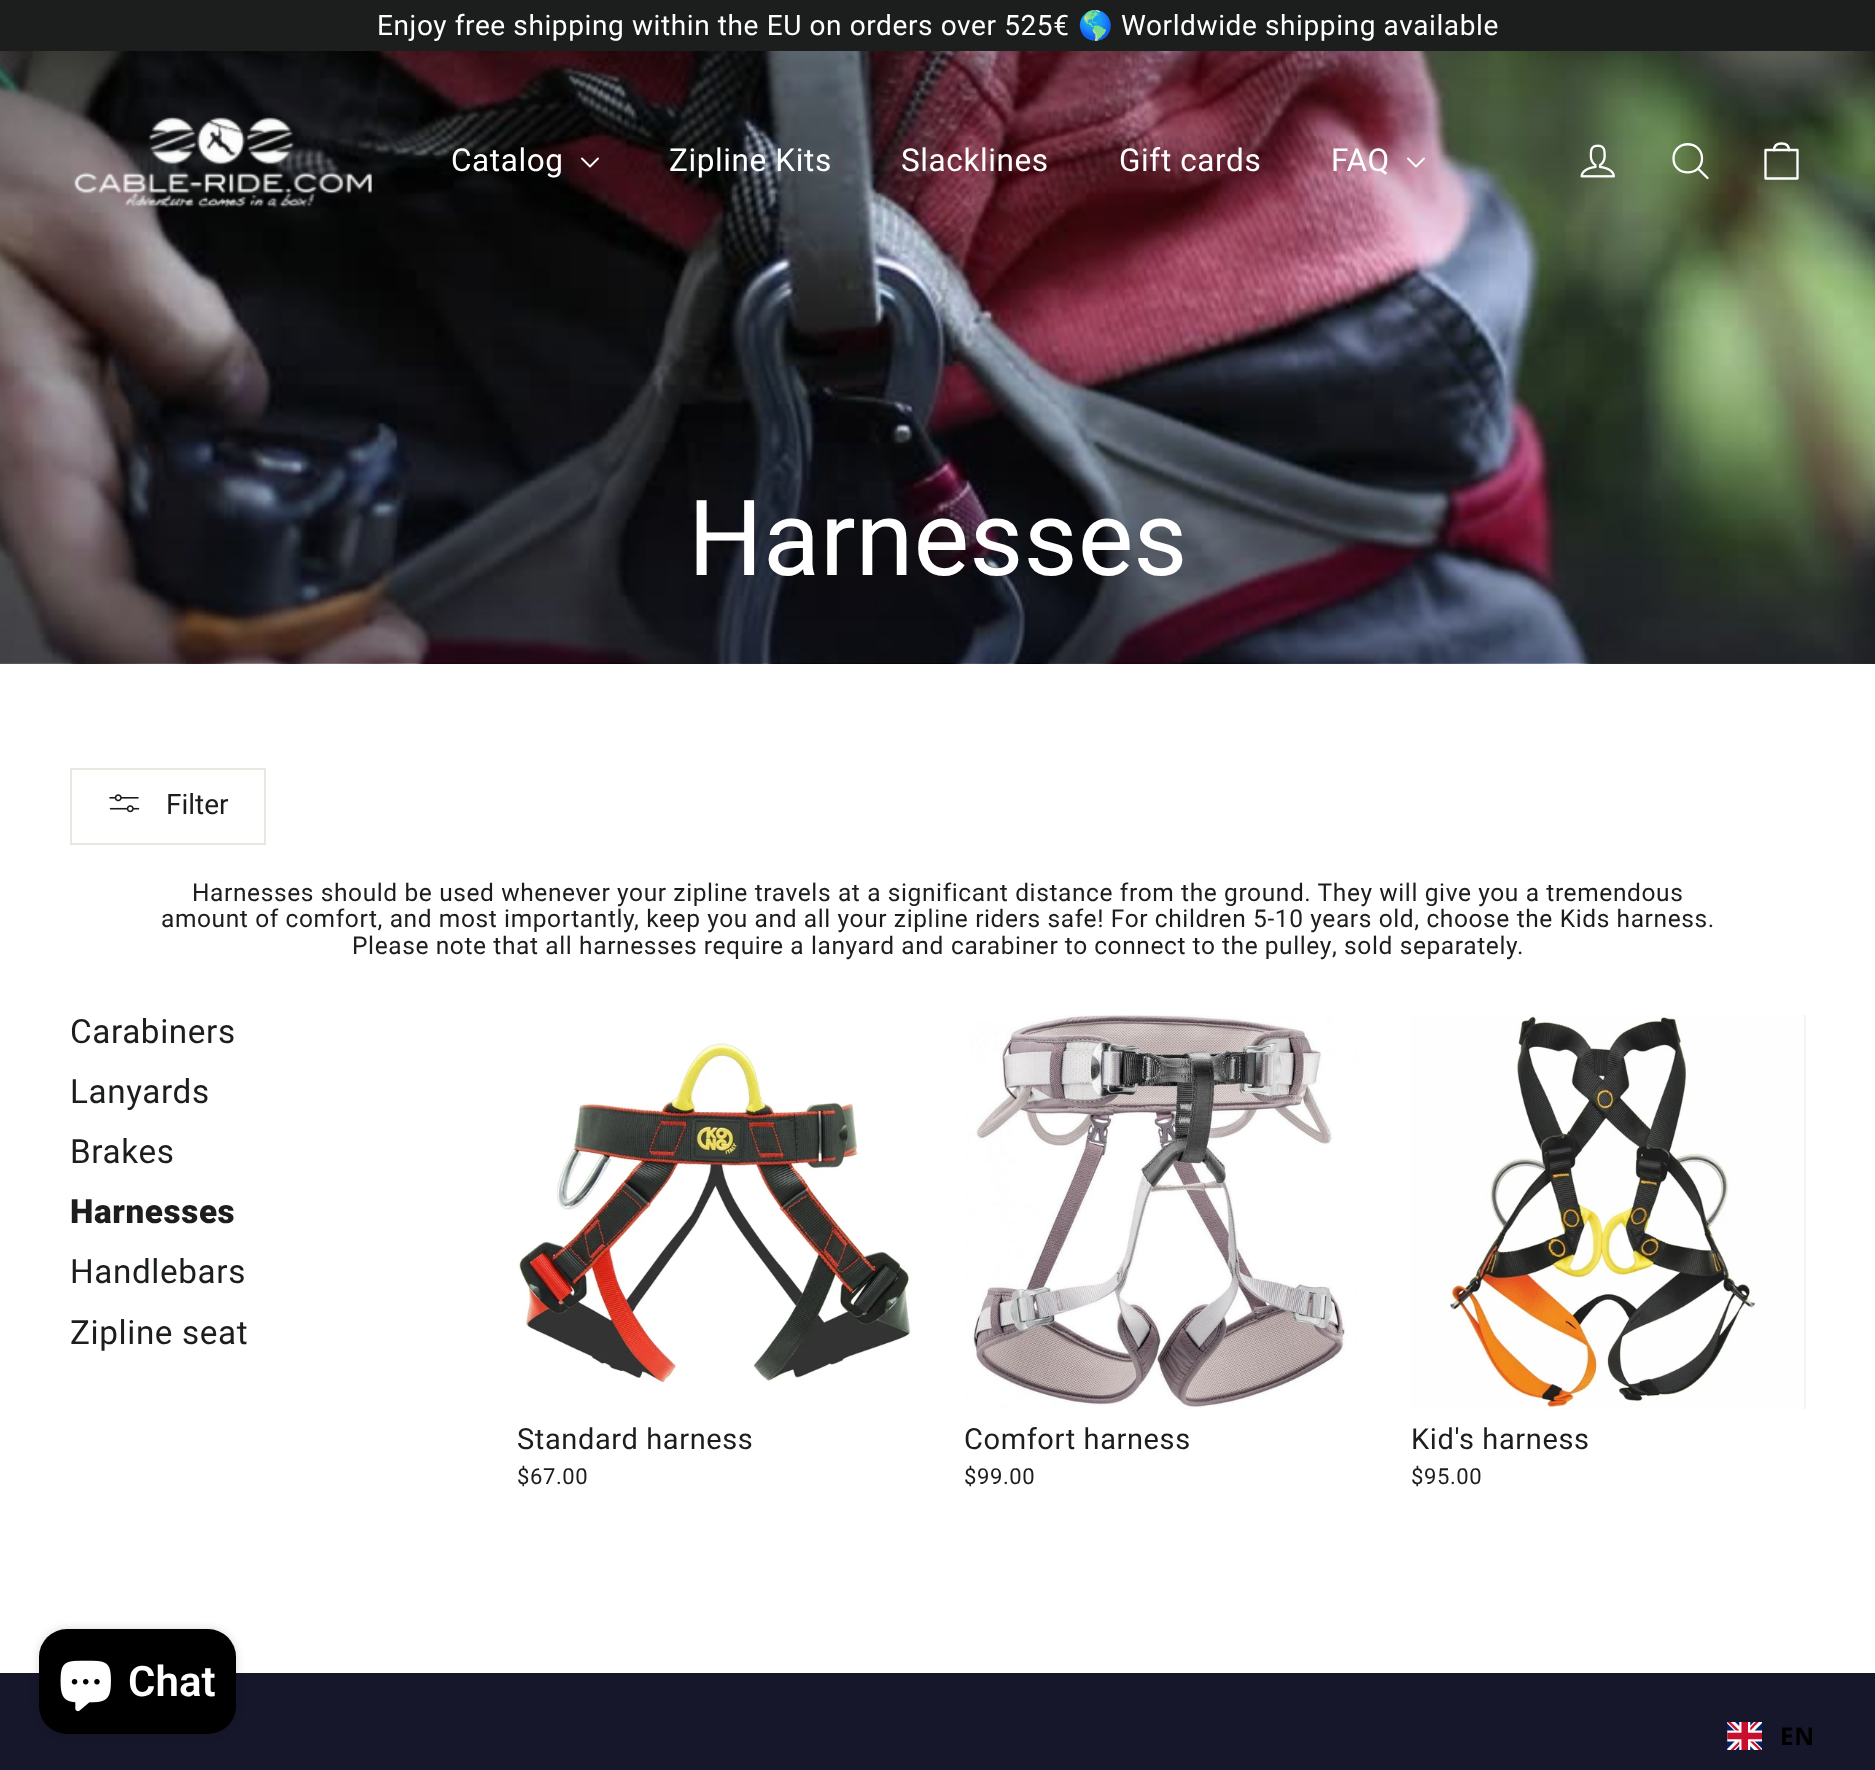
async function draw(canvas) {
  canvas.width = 1875
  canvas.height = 1770
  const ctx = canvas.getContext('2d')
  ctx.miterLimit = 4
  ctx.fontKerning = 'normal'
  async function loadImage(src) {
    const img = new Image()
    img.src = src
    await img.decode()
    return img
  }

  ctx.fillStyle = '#fff'
  ctx.fillRect(0, 0, 1875, 1770)
  ctx.fillStyle = '#1c1d1d'
  ctx.fillRect(0, 0, 1875, 51)
  ctx.letterSpacing = '0.61px'
  ctx.font = '28px Roboto'
  ctx.fillStyle = '#fff'
  ctx.fillText('Enjoy free shipping within the EU on orders over 525€', 377, 35)
  ctx.font = '28px Noto Color Emoji'
  ctx.fillText('🌎', 1078, 35)
  ctx.font = '28px Roboto'
  ctx.fillText('Worldwide shipping available', 1121, 35)
  ctx.drawImage(await loadImage('image2.png'), 0, 51, 1875, 613)
  ctx.drawImage(await loadImage('image0.png'), 73, 116, 299, 92)
  ctx.font = '31.5px Roboto'
  ctx.fillText('Catalog', 451, 171)
  ctx.beginPath()
  ctx.moveTo(582, 158.5)
  ctx.lineTo(590, 166.5)
  ctx.lineTo(598, 158.5)
  ctx.strokeStyle = '#fff'
  ctx.lineWidth = 1.9
  ctx.lineCap = 'round'
  ctx.lineJoin = 'round'
  ctx.stroke()
  ctx.fillText('Zipline Kits', 669, 171)
  ctx.fillText('Slacklines', 901, 171)
  ctx.fillText('Gift cards', 1119, 171)
  ctx.fillText('FAQ', 1331, 171)
  ctx.beginPath()
  ctx.moveTo(1408, 158.5)
  ctx.lineTo(1416, 166.5)
  ctx.lineTo(1424, 158.5)
  ctx.stroke()
  ctx.drawImage(await loadImage('image1.png'), 1580, 144, 35, 34)
  ctx.beginPath()
  ctx.moveTo(1702, 158.5)
  ctx.bezierCurveTo(1702, 177, 1673.5, 177, 1673.5, 158.5)
  ctx.bezierCurveTo(1673.5, 139.5, 1702, 139.5, 1702, 158.5)
  ctx.closePath()
  ctx.moveTo(1707.5, 178)
  ctx.lineTo(1698, 168.5)
  ctx.lineWidth = 2.3
  ctx.stroke()
  ctx.beginPath()
  ctx.moveTo(1765.5, 150)
  ctx.lineTo(1797.5, 150)
  ctx.lineTo(1797.5, 178.5)
  ctx.lineTo(1765.5, 178.5)
  ctx.closePath()
  ctx.moveTo(1774, 150.5)
  ctx.bezierCurveTo(1774, 145, 1777.5, 143.5, 1781.5, 143.5)
  ctx.bezierCurveTo(1785.5, 143.5, 1789, 145, 1789, 150.5)
  ctx.stroke()
  ctx.letterSpacing = '0px'
  ctx.font = '105px Roboto'
  ctx.fillText('Harnesses', 688, 575)
  ctx.strokeStyle = '#e8e8e1'
  ctx.lineWidth = 2
  ctx.lineJoin = 'miter'
  ctx.strokeRect(71, 769, 194, 75)
  ctx.drawImage(await loadImage('image3.png'), 109, 794, 31, 19)
  ctx.font = '28px Roboto'
  ctx.fillStyle = '#1c1d1d'
  ctx.fillText('Filter', 166, 814)
  ctx.letterSpacing = '0.61px'
  ctx.font = '24.5px Roboto'
  ctx.fillText('Harnesses should be used whenever your zipline travels at a significant distance from the ground. They will give you a tremendous', 192, 901)
  ctx.fillText('amount of comfort, and most importantly, keep you and all your zipline riders safe! For children 5-10 years old, choose the Kids harness.', 161, 927)
  ctx.fillText('Please note that all harnesses require a lanyard and', 352, 954)
  ctx.wordSpacing = '-0.25px'
  ctx.fillText('carabiner to connect to the pulley', 951, 954)
  ctx.wordSpacing = '0px'
  ctx.fillText(', sold separately.', 1332, 954)
  ctx.font = '33.25px Roboto'
  ctx.fillText('Carabiners', 70, 1043)
  ctx.fillText('Lanyards', 70, 1103)
  ctx.fillText('Brakes', 70, 1163)
  ctx.font = '900 33.25px Roboto'
  ctx.fillText('Harnesses', 70, 1223)
  ctx.font = '33.25px Roboto'
  ctx.fillText('Handlebars', 70, 1283)
  ctx.fillText('Zipline seat', 70, 1344)
  ctx.drawImage(await loadImage('image4.png'), 518, 1015, 394, 394)
  ctx.font = '29px Roboto'
  ctx.fillText('Standard harness', 517, 1449)
  ctx.font = '22px Roboto'
  ctx.fillText('$67.00', 517, 1484)
  ctx.drawImage(await loadImage('image5.png'), 964, 1015, 394, 394)
  ctx.font = '29px Roboto'
  ctx.fillText('Comfort harness', 964, 1449)
  ctx.font = '22px Roboto'
  ctx.fillText('$99.00', 964, 1484)
  ctx.fillStyle = '#f4f4f4'
  ctx.fillRect(1411, 1015, 395, 394)
  ctx.drawImage(await loadImage('image6.png'), 1411, 1015, 393, 394)
  ctx.font = '29px Roboto'
  ctx.fillStyle = '#1c1d1d'
  ctx.fillText('Kid\'s harness', 1411, 1449)
  ctx.font = '22px Roboto'
  ctx.fillText('$95.00', 1411, 1484)
  ctx.fillStyle = '#17172c'
  ctx.fillRect(0, 1673, 1875, 97)
  ctx.fillStyle = '#00000026'
  ctx.filter = 'blur(4.5px)'
  ctx.beginPath()
  ctx.roundRect(39, 1629, 197, 105, 28)
  ctx.fill()
  ctx.filter = 'none'
  ctx.fillStyle = '#000'
  ctx.beginPath()
  ctx.roundRect(39, 1629, 197, 105, 28)
  ctx.fill()
  ctx.drawImage(await loadImage('image7.png'), 60, 1660, 51, 52)
  ctx.letterSpacing = '0px'
  ctx.font = '600 42px Roboto'
  ctx.fillStyle = '#fff'
  ctx.fillText('Chat', 128, 1696)
  ctx.drawImage(await loadImage('image8.png'), 1727, 1722, 35, 28)
  ctx.letterSpacing = '0.61px'
  ctx.font = 'bold 24.5px Noto Sans'
  ctx.fillStyle = '#000'
  ctx.fillText('EN', 1780, 1745)
}

draw(document.querySelector('canvas'))
